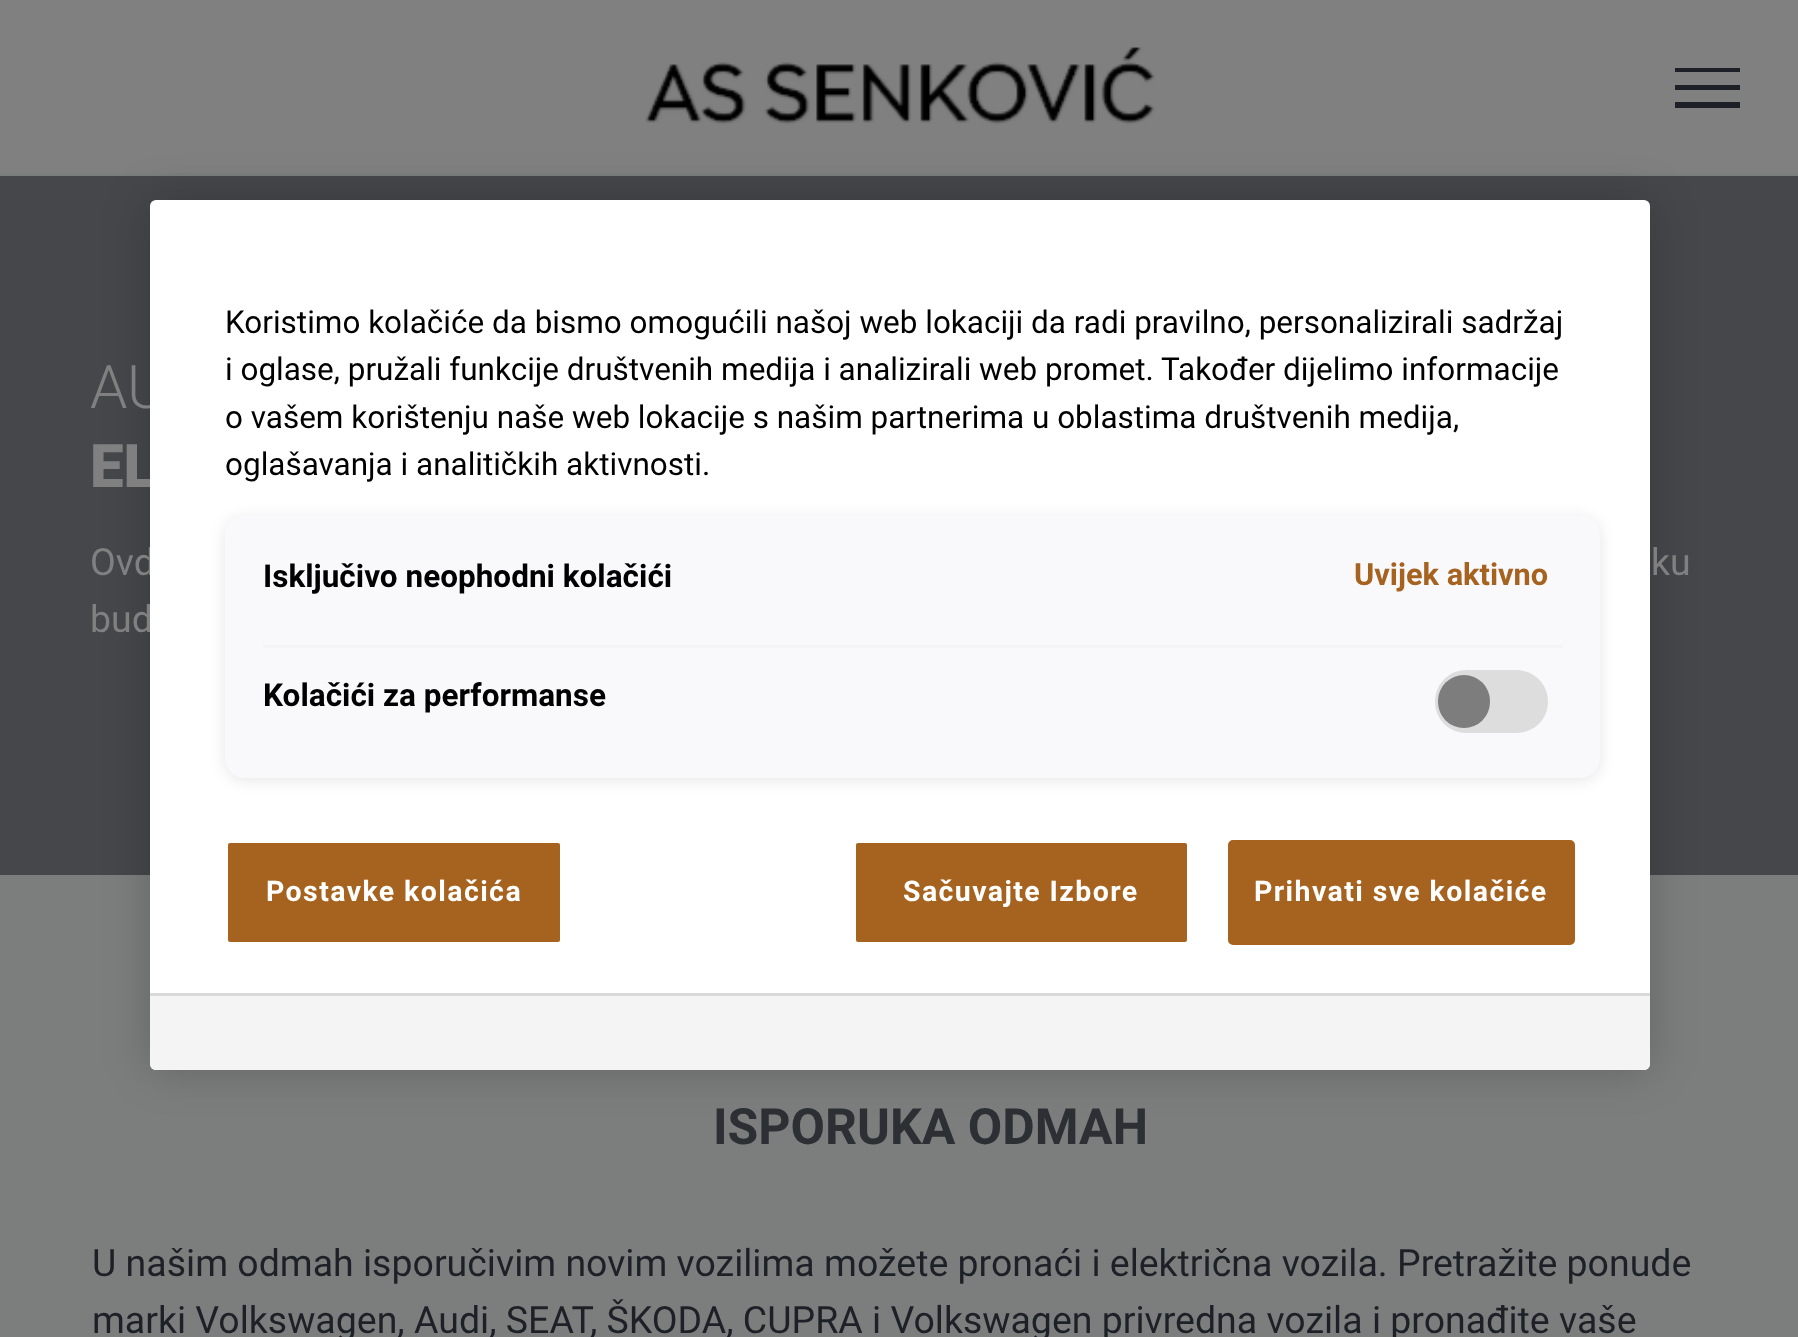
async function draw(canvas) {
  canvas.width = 1798
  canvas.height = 1337
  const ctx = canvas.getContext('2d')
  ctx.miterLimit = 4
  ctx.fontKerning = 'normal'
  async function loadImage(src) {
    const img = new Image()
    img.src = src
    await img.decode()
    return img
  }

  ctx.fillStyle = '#808080'
  ctx.fillRect(0, 0, 1798, 1337)
  ctx.fillStyle = '#7c7d7d'
  ctx.fillRect(0, 173, 1798, 3)
  ctx.fillStyle = '#45474b'
  ctx.fillRect(0, 176, 1798, 699)
  ctx.fillStyle = '#7c7d7d'
  ctx.fillRect(0, 875, 1798, 462)
  ctx.fillStyle = '#00000033'
  ctx.filter = 'blur(22.5px)'
  ctx.beginPath()
  ctx.roundRect(150, 200, 1500, 870, 6)
  ctx.fill()
  ctx.filter = 'none'
  ctx.font = '300 60px Roboto'
  ctx.fillStyle = '#808080'
  ctx.fillText('AU', 90, 408)
  ctx.font = '900 60px Roboto'
  ctx.fillText('EL', 90, 487)
  ctx.font = '37.5px Roboto'
  ctx.fillText('Ovd', 90, 575)
  ctx.fillText('bud', 90, 632)
  ctx.fillStyle = '#fff'
  ctx.beginPath()
  ctx.roundRect(150, 200, 1500, 870, 6)
  ctx.fill()
  ctx.font = '31.5px Roboto'
  ctx.fillStyle = '#000'
  ctx.fillText('Koristimo kolačiće da bismo omogućili našoj web lokaciji da radi pravilno, personalizirali sadržaj', 225, 333)
  ctx.fillText('i oglase, pružali funkcije društvenih medija i analizirali web promet. Također dijelimo informacije', 225, 380)
  ctx.fillText('o vašem korištenju naše web lokacije s našim partnerima u oblastima društvenih medija,', 225, 428)
  ctx.fillText('oglašavanja i analitičkih aktivnosti.', 225, 475)
  ctx.fillStyle = '#0000001a'
  ctx.filter = 'blur(7.5px)'
  ctx.beginPath()
  ctx.roundRect(225, 518, 1375, 262, 20)
  ctx.fill()
  ctx.filter = 'none'
  ctx.fillStyle = '#f9f9fc'
  ctx.beginPath()
  ctx.roundRect(225, 515, 1375, 263, 20)
  ctx.fill()
  ctx.fillStyle = '#f4f4f4'
  ctx.fillRect(263, 645, 1300, 3)
  ctx.font = 'bold 31.5px Roboto'
  ctx.fillStyle = '#000'
  ctx.fillText('Isključivo neophodni kolačići', 263, 587)
  ctx.font = 'bold 30.75px Roboto'
  ctx.fillStyle = '#a6621f'
  ctx.fillText('Uvijek aktivno', 1354, 585)
  ctx.font = 'bold 31.5px Roboto'
  ctx.fillStyle = '#000'
  ctx.fillText('Kolačići za performanse', 263, 706)
  ctx.fillStyle = '#ddd'
  ctx.beginPath()
  ctx.moveTo(1466, 670)
  ctx.lineTo(1516, 670)
  ctx.bezierCurveTo(1534, 670, 1548, 684, 1548, 702)
  ctx.bezierCurveTo(1548, 719, 1534, 733, 1516, 733)
  ctx.lineTo(1466, 733)
  ctx.bezierCurveTo(1449, 733, 1435, 719, 1435, 702)
  ctx.bezierCurveTo(1435, 684, 1449, 670, 1466, 670)
  ctx.closePath()
  ctx.fill()
  ctx.fillStyle = '#7d7d7d'
  ctx.beginPath()
  ctx.roundRect(1438, 675, 52, 53, 26)
  ctx.fill()
  ctx.fillStyle = '#a6621f'
  ctx.beginPath()
  ctx.roundRect(226.5, 841.5, 335, 102, 3.5)
  ctx.fill()
  ctx.strokeStyle = '#fff'
  ctx.lineWidth = 3
  ctx.stroke()
  ctx.letterSpacing = '1.4px'
  ctx.font = 'bold 28.5px Roboto'
  ctx.fillStyle = '#fff'
  ctx.fillText('Postavke kolačića', 266, 901)
  ctx.fillStyle = '#a6621f'
  ctx.beginPath()
  ctx.roundRect(854.5, 841.5, 334, 102, 3.5)
  ctx.fill()
  ctx.stroke()
  ctx.fillStyle = '#fff'
  ctx.fillText('Sačuvajte Izbore', 903, 901)
  ctx.fillStyle = '#a6621f'
  ctx.beginPath()
  ctx.roundRect(1229.5, 841.5, 344, 102, 3.5)
  ctx.fill()
  ctx.strokeStyle = '#a6621f'
  ctx.stroke()
  ctx.fillStyle = '#fff'
  ctx.fillText('Prihvati sve kolačiće', 1254, 901)
  ctx.fillStyle = '#f4f4f4'
  ctx.beginPath()
  ctx.roundRect(150, 993, 1500, 77, [0, 0, 6, 6])
  ctx.fill()
  ctx.fillStyle = '#d8d8d8'
  ctx.fillRect(150, 993, 1500, 3)
  ctx.drawImage(await loadImage('image0.png'), 645, 47, 511, 78)
  ctx.fillStyle = '#1d2127'
  ctx.beginPath()
  ctx.moveTo(1740, 102)
  ctx.lineTo(1740, 108)
  ctx.lineTo(1675, 108)
  ctx.lineTo(1675, 102)
  ctx.closePath()
  ctx.moveTo(1740, 85)
  ctx.lineTo(1740, 90)
  ctx.lineTo(1675, 90)
  ctx.lineTo(1675, 85)
  ctx.closePath()
  ctx.moveTo(1740, 68)
  ctx.lineTo(1740, 72)
  ctx.lineTo(1675, 72)
  ctx.lineTo(1675, 68)
  ctx.closePath()
  ctx.fill('evenodd')
  ctx.letterSpacing = '0px'
  ctx.font = '37.5px Roboto'
  ctx.fillStyle = '#808080'
  ctx.fillText('ku', 1651, 575)
  ctx.font = 'bold 50px Roboto'
  ctx.fillStyle = '#2c3035'
  ctx.fillText('ISPORUKA ODMAH', 713, 1144)
  ctx.font = '37.5px Roboto'
  ctx.fillStyle = '#1d2127'
  ctx.fillText('U našim odmah isporučivim novim vozilima možete pronaći i električna vozila. Pretražite ponude', 92, 1276)
  ctx.fillText('marki Volkswagen, Audi, SEAT, ŠKODA, CUPRA i Volkswagen privredna vozila i pronađite vaše', 92, 1333)
}

draw(document.querySelector('canvas'))
